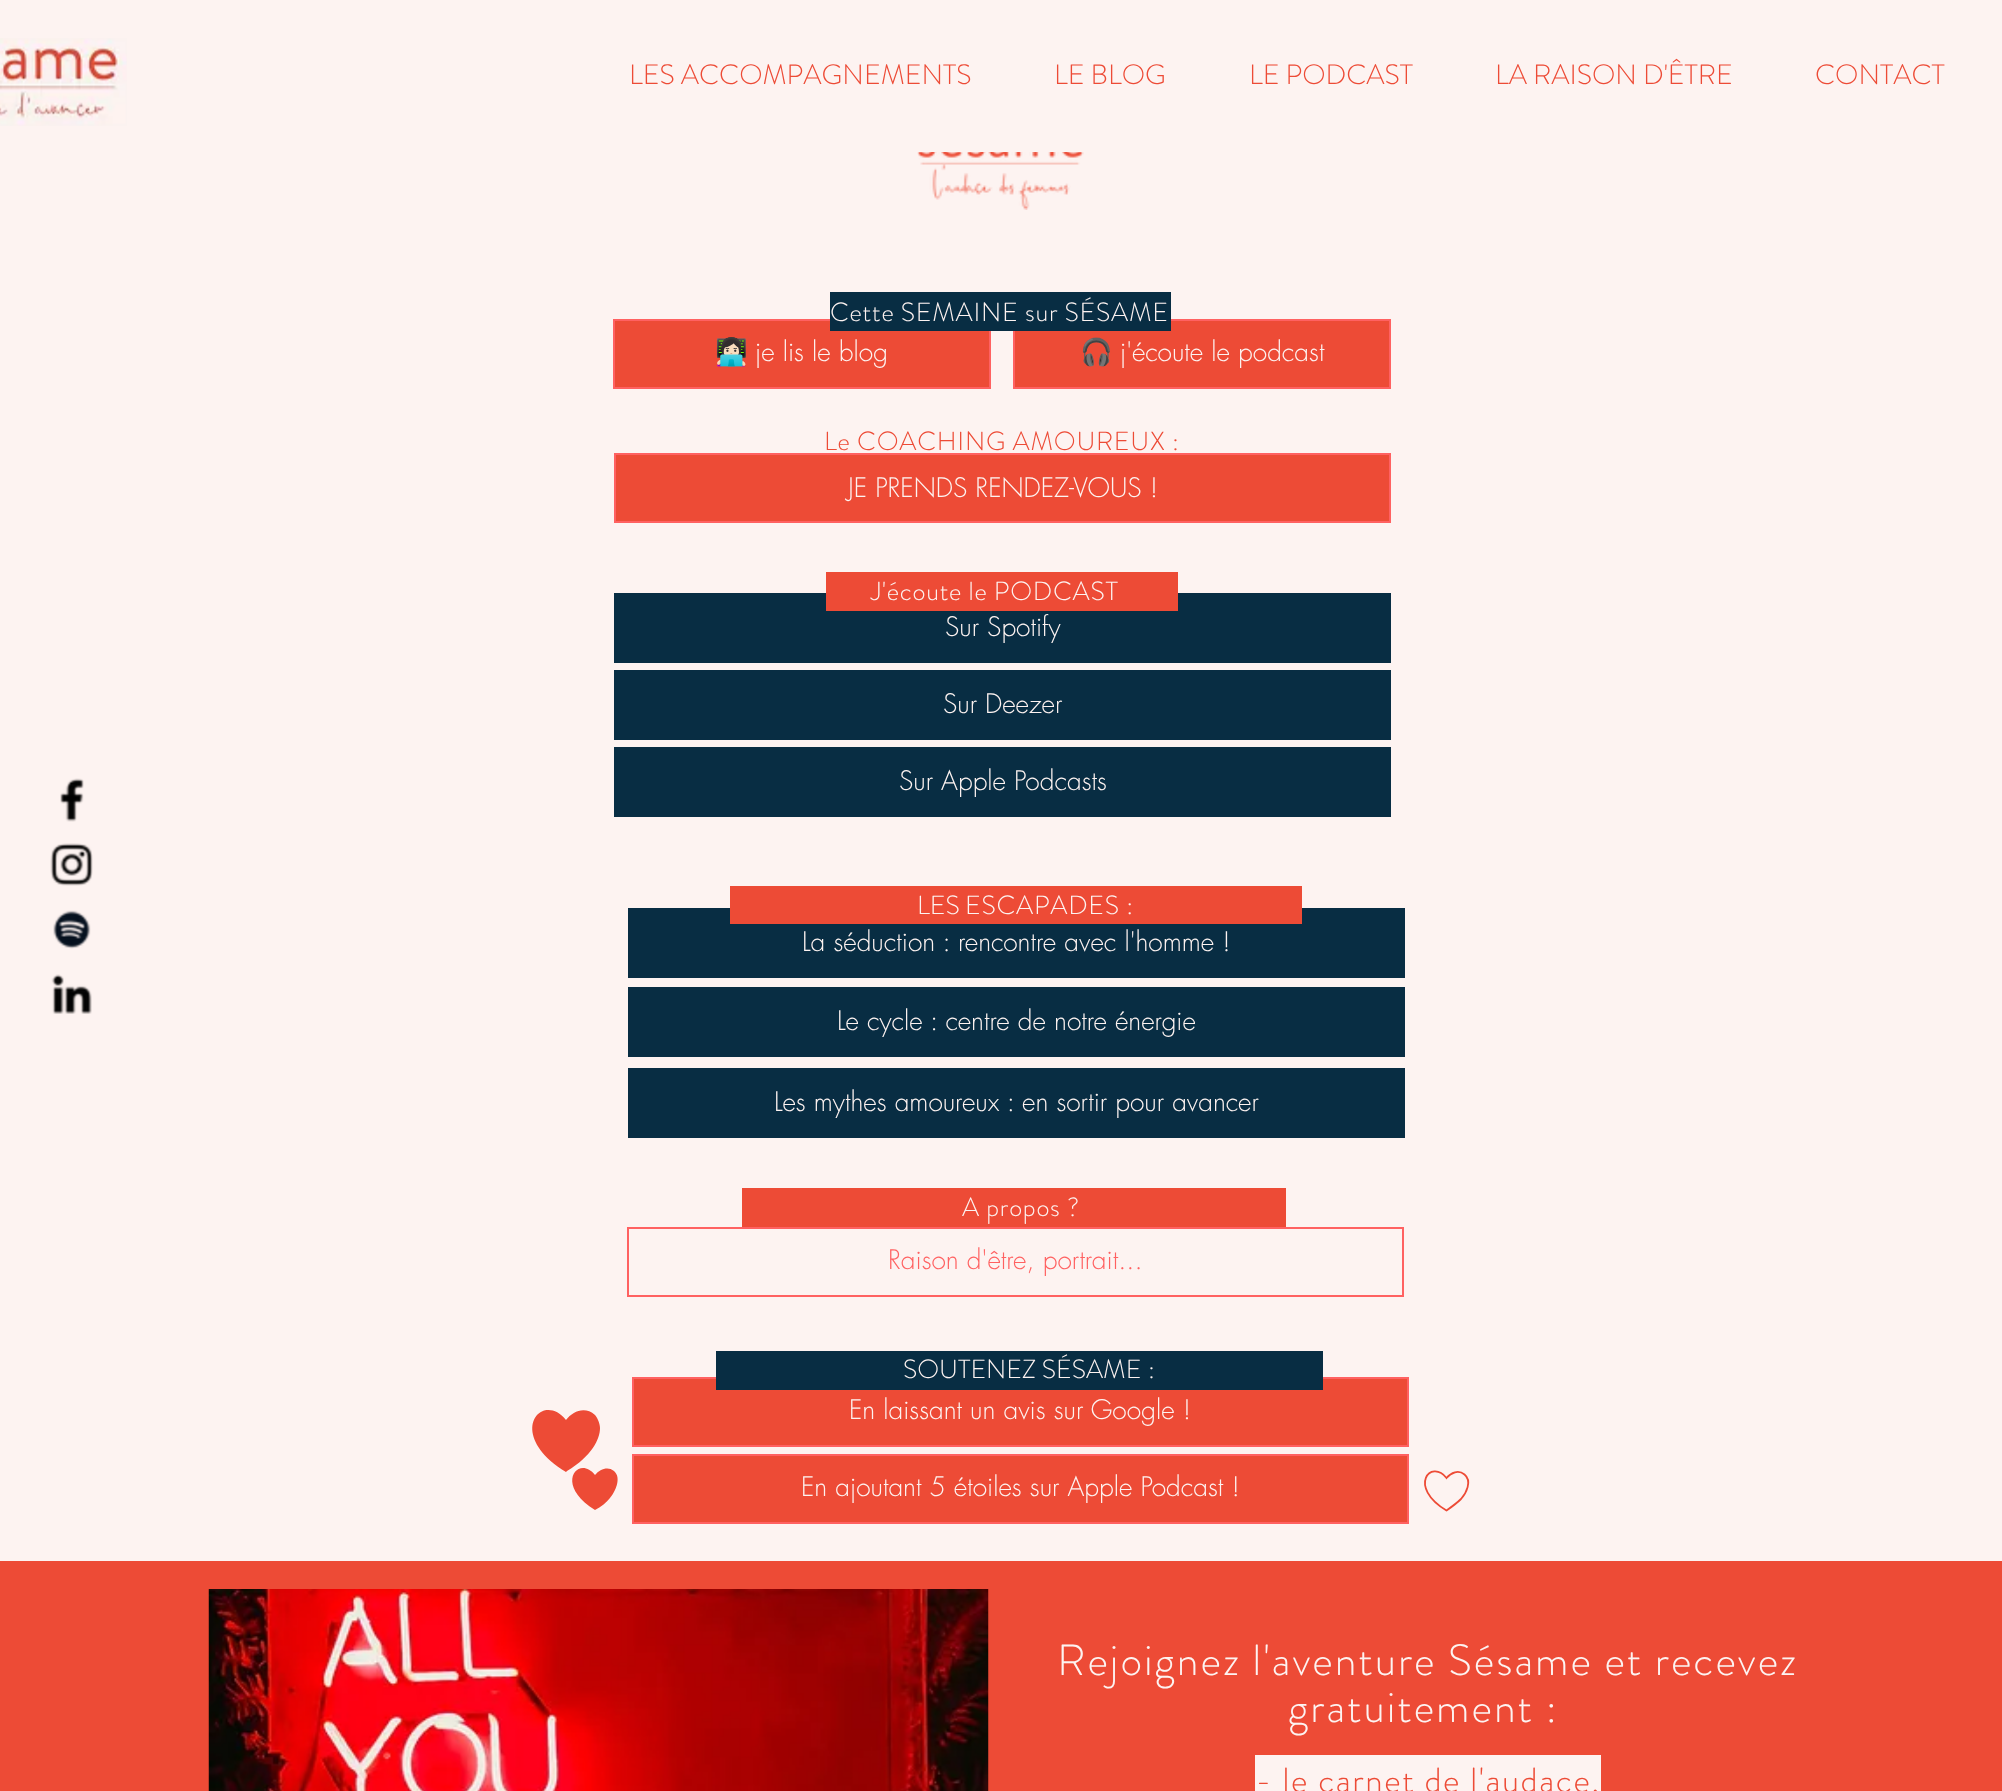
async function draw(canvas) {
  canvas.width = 2002
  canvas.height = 1791
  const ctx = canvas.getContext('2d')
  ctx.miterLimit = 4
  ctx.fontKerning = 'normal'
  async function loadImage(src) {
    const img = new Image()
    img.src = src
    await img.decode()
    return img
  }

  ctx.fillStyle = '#fdf3f1'
  ctx.fillRect(0, 0, 2002, 1791)
  ctx.drawImage(await loadImage('image0.png'), 0, 38, 127, 88)
  ctx.font = '300 28px "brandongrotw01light"'
  ctx.fillStyle = '#ed4b36'
  ctx.fillText('LES ACCOMPAGNEMENTS', 629, 84)
  ctx.fillText('LE BLOG', 1054, 84)
  ctx.fillText('LE PODCAST', 1249, 84)
  ctx.fillText('LA RAISON D\'ÊTRE', 1495, 84)
  ctx.fillText('CONTACT', 1815, 84)
  ctx.drawImage(await loadImage('image5.png'), 917, 152, 167, 58)
  ctx.fillStyle = '#ffffff0a'
  ctx.fillRect(919, 152, 163, 1)
  ctx.drawImage(await loadImage('image1.png'), 60, 778, 24, 44)
  ctx.drawImage(await loadImage('image2.png'), 50, 843, 43, 43)
  ctx.drawImage(await loadImage('image3.png'), 53, 910, 38, 39)
  ctx.drawImage(await loadImage('image4.png'), 51, 974, 41, 40)
  ctx.fillStyle = '#ed4b36'
  ctx.beginPath()
  ctx.rect(614, 320, 376, 68)
  ctx.fill()
  ctx.strokeStyle = '#ff6161'
  ctx.lineWidth = 2
  ctx.stroke()
  ctx.beginPath()
  ctx.rect(1014, 320, 376, 68)
  ctx.fill()
  ctx.stroke()
  ctx.fillStyle = '#082d43'
  ctx.fillRect(830, 292, 341, 39)
  ctx.letterSpacing = '0.75px'
  ctx.font = '300 26.25px "brandongrotw01light"'
  ctx.fillStyle = '#fdf3f1'
  ctx.fillText('Cette SEMAINE sur SÉSAME', 830, 321)
  ctx.letterSpacing = '0px'
  ctx.font = '26.25px Noto Color Emoji'
  ctx.fillText('👩🏻‍💻', 715, 361)
  ctx.font = '300 26.25px futura'
  ctx.fillText('je lis le blog', 755, 361)
  ctx.font = '26.25px Noto Color Emoji'
  ctx.fillText('🎧', 1080, 361)
  ctx.font = '300 26.25px futura'
  ctx.fillText('j\'écoute le podcast', 1120, 361)
  ctx.letterSpacing = '0.75px'
  ctx.font = '300 26.25px "brandongrotw01light"'
  ctx.fillStyle = '#ed4b36'
  ctx.fillText('Le COACHING AMOUREUX :', 824, 450)
  ctx.beginPath()
  ctx.rect(615, 454, 775, 68)
  ctx.fill()
  ctx.stroke()
  ctx.letterSpacing = '0px'
  ctx.font = '300 26.25px futura'
  ctx.fillStyle = '#fdf3f1'
  ctx.fillText('JE PRENDS RENDEZ-VOUS !', 848, 497)
  ctx.fillStyle = '#082d43'
  ctx.fillRect(614, 593, 777, 70)
  ctx.fillStyle = '#ed4b36'
  ctx.fillRect(826, 572, 352, 39)
  ctx.letterSpacing = '0.75px'
  ctx.font = '300 26.25px "brandongrotw01light"'
  ctx.fillStyle = '#fdf3f1'
  ctx.fillText('J\'écoute le PODCAST', 871, 600)
  ctx.letterSpacing = '0px'
  ctx.font = '300 26.25px futura'
  ctx.fillText('Sur Spotify', 945, 636)
  ctx.fillStyle = '#082d43'
  ctx.fillRect(614, 670, 777, 70)
  ctx.fillStyle = '#fdf3f1'
  ctx.fillText('Sur Deezer', 943, 713)
  ctx.fillStyle = '#082d43'
  ctx.fillRect(614, 747, 777, 70)
  ctx.fillStyle = '#fdf3f1'
  ctx.fillText('Sur Apple Podcasts', 899, 790)
  ctx.fillStyle = '#082d43'
  ctx.fillRect(628, 908, 777, 70)
  ctx.fillStyle = '#ed4b36'
  ctx.fillRect(730, 886, 572, 38)
  ctx.font = '300 26.25px "brandongrotw01light"'
  ctx.fillStyle = '#fdf3f1'
  ctx.fillText('LES', 917, 914)
  ctx.letterSpacing = '0.75px'
  ctx.fillText('ESCAPADES :', 965, 914)
  ctx.letterSpacing = '0px'
  ctx.font = '300 26.25px futura'
  ctx.fillText('La séduction : rencontre avec l\'homme !', 802, 951)
  ctx.fillStyle = '#082d43'
  ctx.fillRect(628, 987, 777, 70)
  ctx.fillStyle = '#fdf3f1'
  ctx.fillText('Le cycle : centre de notre énergie', 837, 1030)
  ctx.fillStyle = '#082d43'
  ctx.fillRect(628, 1068, 777, 70)
  ctx.fillStyle = '#fdf3f1'
  ctx.fillText('Les mythes amoureux : en sortir pour avancer', 774, 1111)
  ctx.fillStyle = '#ed4b36'
  ctx.fillRect(742, 1188, 544, 39)
  ctx.letterSpacing = '0.75px'
  ctx.font = '300 26.25px "brandongrotw01light"'
  ctx.fillStyle = '#fdf3f1'
  ctx.fillText('A propos ?', 962, 1216)
  ctx.strokeRect(628, 1228, 775, 68)
  ctx.letterSpacing = '0px'
  ctx.font = '300 26.25px futura'
  ctx.fillStyle = '#ff6161'
  ctx.fillText('Raison d\'être, portrait...', 888, 1269)
  ctx.fillStyle = '#ed4b36'
  ctx.beginPath()
  ctx.rect(633, 1378, 775, 68)
  ctx.fill()
  ctx.stroke()
  ctx.fillStyle = '#082d43'
  ctx.fillRect(716, 1351, 607, 39)
  ctx.font = '300 26.25px "brandongrotw01light"'
  ctx.fillStyle = '#fdf3f1'
  ctx.fillText('SOUTENEZ SÉSAME', 903, 1378)
  ctx.letterSpacing = '0.75px'
  ctx.fillText(':', 1148, 1378)
  ctx.fillStyle = '#ed4b36'
  ctx.beginPath()
  ctx.moveTo(595, 1415)
  ctx.bezierCurveTo(585, 1406, 573, 1411, 566, 1420)
  ctx.bezierCurveTo(542, 1390, 504, 1434, 566, 1472)
  ctx.lineTo(567, 1471)
  ctx.bezierCurveTo(592, 1456, 600, 1439, 600, 1428)
  ctx.bezierCurveTo(600, 1423, 597, 1417, 595, 1415)
  ctx.closePath()
  ctx.fill()
  ctx.letterSpacing = '0px'
  ctx.font = '300 26.25px futura'
  ctx.fillStyle = '#fdf3f1'
  ctx.fillText('En laissant un avis sur Google !', 849, 1419)
  ctx.fillStyle = '#ed4b36'
  ctx.beginPath()
  ctx.moveTo(614, 1471)
  ctx.bezierCurveTo(608, 1466, 600, 1469, 595, 1475)
  ctx.bezierCurveTo(579, 1454, 553, 1484, 595, 1510)
  ctx.bezierCurveTo(601, 1507, 606, 1503, 610, 1498)
  ctx.bezierCurveTo(615, 1492, 622, 1478, 614, 1471)
  ctx.closePath()
  ctx.fill()
  ctx.beginPath()
  ctx.rect(633, 1455, 775, 68)
  ctx.fill()
  ctx.stroke()
  ctx.fillStyle = '#fdf3f1'
  ctx.fillText('En ajoutant 5 étoiles sur Apple Podcast !', 801, 1496)
  ctx.beginPath()
  ctx.moveTo(1464.5, 1474.5)
  ctx.bezierCurveTo(1458.5, 1469.5, 1451, 1472.5, 1446.5, 1478)
  ctx.bezierCurveTo(1431, 1458.5, 1407, 1486.5, 1446.5, 1510.5)
  ctx.bezierCurveTo(1451.5, 1507, 1456.5, 1503.5, 1461, 1499)
  ctx.bezierCurveTo(1466, 1493.5, 1472.5, 1481, 1464.5, 1474.5)
  ctx.closePath()
  ctx.strokeStyle = '#ed4b36'
  ctx.lineWidth = 1.8
  ctx.stroke()
  ctx.fillStyle = '#ed4b36'
  ctx.fillRect(0, 1561, 2002, 230)
  ctx.drawImage(await loadImage('image6.png'), 208, 1589, 781, 202)
  ctx.letterSpacing = '2px'
  ctx.font = '300 43.75px "brandongrotw01light"'
  ctx.fillStyle = '#fdf3f1'
  ctx.fillText('Rejoignez l\'aventure Sésame et recevez', 1057, 1675)
  ctx.fillText('gratuitement :', 1288, 1722)
  ctx.fillRect(1255, 1755, 346, 36)
  ctx.letterSpacing = '1.6px'
  ctx.font = '300 35px "brandongrotw01light"'
  ctx.fillStyle = '#ed4b36'
  ctx.fillText('- le carnet de l\'audace,', 1255, 1792)
}

draw(document.querySelector('canvas'))
